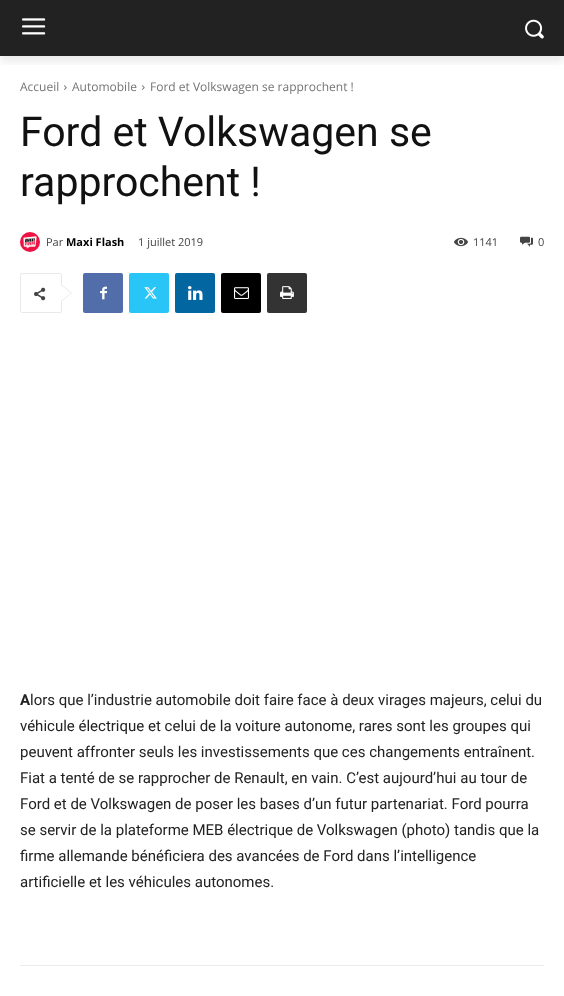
async function draw(canvas) {
  canvas.width = 564
  canvas.height = 996
  const ctx = canvas.getContext('2d')
  ctx.miterLimit = 4
  ctx.fontKerning = 'normal'
  async function loadImage(src) {
    const img = new Image()
    img.src = src
    await img.decode()
    return img
  }

  ctx.fillStyle = '#fff'
  ctx.fillRect(0, 0, 564, 996)
  ctx.fillStyle = '#222'
  ctx.fillRect(0, 0, 564, 56)
  ctx.save()
  ctx.beginPath()
  ctx.rect(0, 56, 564, 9)
  ctx.clip()
  ctx.fillStyle = '#00000014'
  ctx.filter = 'blur(4px)'
  ctx.beginPath()
  ctx.rect(0, 6, 564, 56)
  ctx.fill()
  ctx.filter = 'none'
  ctx.restore()
  ctx.drawImage(await loadImage('image0.png'), 22, 18, 24, 17)
  ctx.drawImage(await loadImage('image1.png'), 525, 19, 19, 20)
  ctx.font = '12px Open Sans'
  ctx.fillStyle = '#747474'
  ctx.fillText('Accueil', 20, 91)
  ctx.drawImage(await loadImage('image2.png'), 64, 85, 3, 5)
  ctx.fillText('Automobile', 72, 91)
  ctx.drawImage(await loadImage('image2.png'), 142, 85, 3, 5)
  ctx.fillText('Ford et Volkswagen se rapprochent !', 150, 91)
  ctx.font = '41px Roboto'
  ctx.fillStyle = '#111'
  ctx.fillText('Ford et Volkswagen se', 20, 146)
  ctx.fillText('rapprochent !', 20, 196)
  ctx.drawImage(await loadImage('image3.png'), 20, 232, 20, 20)
  ctx.font = '11px Open Sans'
  ctx.fillStyle = '#444'
  ctx.fillText('Par', 46, 246)
  ctx.font = 'bold 11px Open Sans'
  ctx.fillStyle = '#000'
  ctx.fillText('Maxi Flash', 66, 246)
  ctx.font = '11px Open Sans'
  ctx.fillStyle = '#444'
  ctx.fillText('1 juillet 2019', 138, 246)
  ctx.drawImage(await loadImage('image4.png'), 454, 237, 14, 10)
  ctx.fillText('1141', 473, 246)
  ctx.drawImage(await loadImage('image5.png'), 520, 236, 13, 11)
  ctx.fillText('0', 538, 246)
  ctx.beginPath()
  ctx.roundRect(20.5, 273.5, 41, 39, 1.5)
  ctx.strokeStyle = '#e9e9e9'
  ctx.stroke()
  ctx.fillStyle = '#e9e9e9'
  ctx.beginPath()
  ctx.moveTo(61, 302)
  ctx.lineTo(61, 284)
  ctx.lineTo(72, 293)
  ctx.closePath()
  ctx.fill()
  ctx.drawImage(await loadImage('image6.png'), 34, 287, 12, 14)
  ctx.fillStyle = '#fff'
  ctx.beginPath()
  ctx.moveTo(61, 301)
  ctx.lineTo(61, 285)
  ctx.lineTo(71, 293)
  ctx.closePath()
  ctx.fill()
  ctx.fillStyle = '#516eab'
  ctx.beginPath()
  ctx.roundRect(83, 273, 40, 40, 2)
  ctx.fill()
  ctx.drawImage(await loadImage('image7.png'), 100, 286, 7, 14)
  ctx.fillStyle = '#29c5f6'
  ctx.beginPath()
  ctx.roundRect(129, 273, 40, 40, 2)
  ctx.fill()
  ctx.drawImage(await loadImage('image8.png'), 144, 287, 13, 12)
  ctx.fillStyle = '#0266a0'
  ctx.beginPath()
  ctx.roundRect(175, 273, 40, 40, 2)
  ctx.fill()
  ctx.drawImage(await loadImage('image9.png'), 188, 286, 15, 14)
  ctx.fillStyle = '#000'
  ctx.beginPath()
  ctx.roundRect(221, 273, 40, 40, 2)
  ctx.fill()
  ctx.drawImage(await loadImage('image10.png'), 234, 287, 15, 12)
  ctx.fillStyle = '#333'
  ctx.beginPath()
  ctx.roundRect(267, 273, 40, 40, 2)
  ctx.fill()
  ctx.drawImage(await loadImage('image11.png'), 280, 286, 14, 13)
  ctx.font = 'bold 15px Roboto'
  ctx.fillStyle = '#222'
  ctx.fillText('A', 20, 705)
  ctx.font = '15px Roboto'
  ctx.fillText('lors que l’industrie automobile doit faire face à deux virages majeurs, celui du', 30, 705)
  ctx.fillText('véhicule électrique et celui de la voiture autonome, rares sont les groupes qui', 20, 731)
  ctx.fillText('peuvent affronter seuls les investissements que ces changements entraînent.', 20, 757)
  ctx.fillText('Fiat a tenté de se rapprocher de Renault, en vain. C’est aujourd’hui au tour de', 20, 783)
  ctx.fillText('Ford et de Volkswagen de poser les bases d’un futur partenariat. Ford pourra', 20, 809)
  ctx.fillText('se servir de la plateforme MEB électrique de Volkswagen (photo) tandis que la', 20, 835)
  ctx.fillText('firme allemande bénéficiera des avancées de Ford dans l’intelligence', 20, 861)
  ctx.fillText('artificielle et les véhicules autonomes.', 20, 887)
  ctx.fillStyle = '#ebebeb'
  ctx.fillRect(20, 965, 524, 1)
}

draw(document.querySelector('canvas'))
